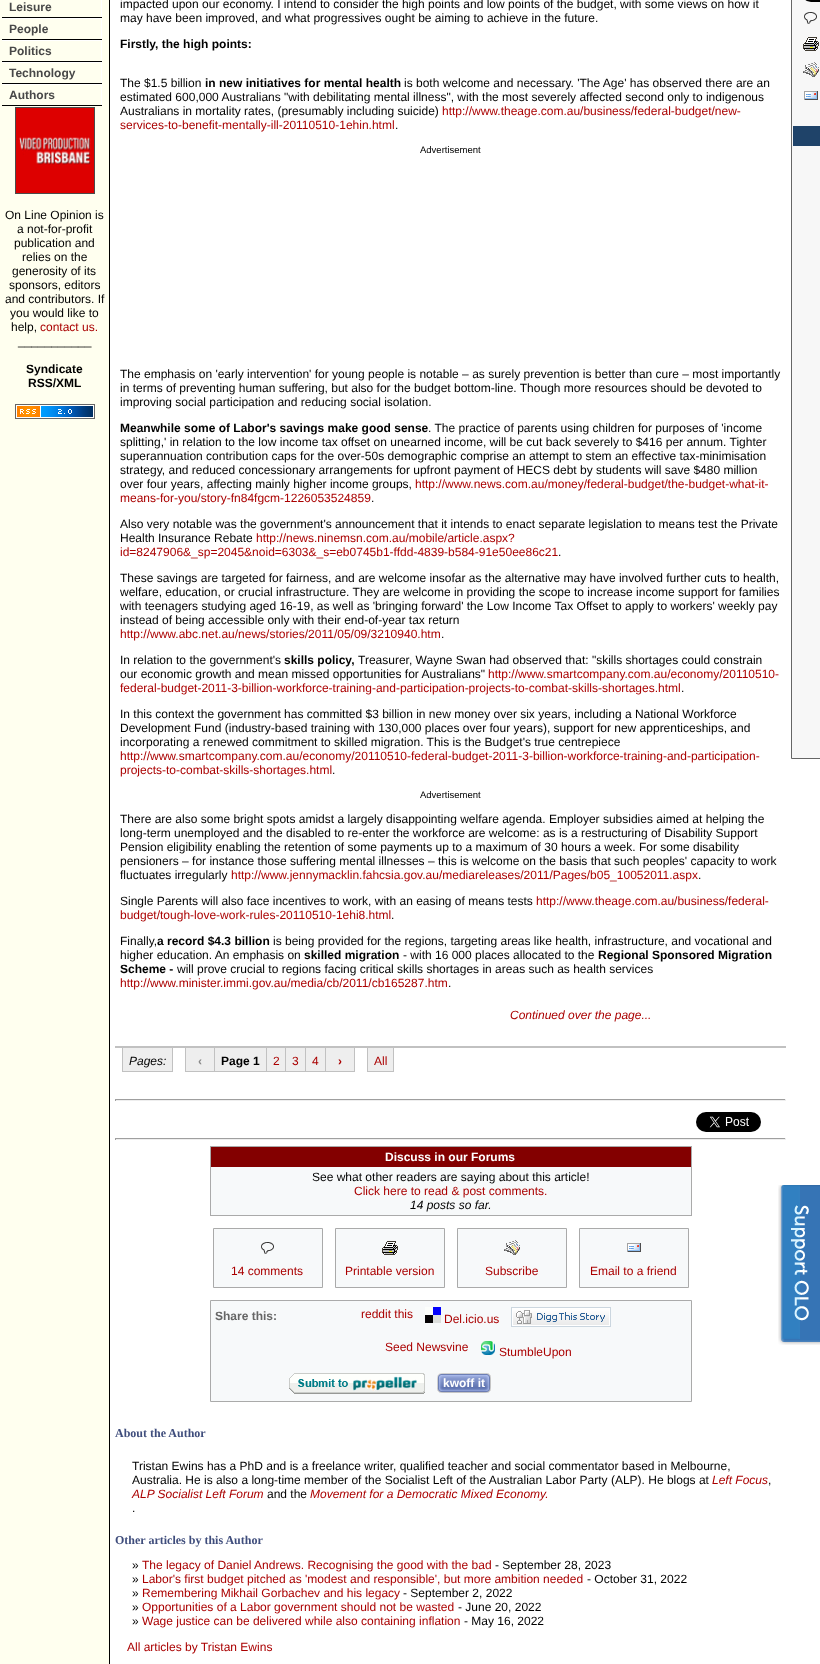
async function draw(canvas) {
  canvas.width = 820
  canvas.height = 1664
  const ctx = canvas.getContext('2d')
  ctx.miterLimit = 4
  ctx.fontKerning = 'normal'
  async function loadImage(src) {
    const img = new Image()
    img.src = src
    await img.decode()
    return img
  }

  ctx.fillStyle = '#fff'
  ctx.fillRect(0, 0, 820, 1664)
  ctx.fillStyle = '#ffffef'
  ctx.fillRect(0, 0, 109, 1664)
  ctx.fillStyle = '#000'
  ctx.fillRect(109, 0, 1, 1664)
  ctx.fillRect(2, 17, 100, 1)
  ctx.fillStyle = '#fff'
  ctx.fillRect(101, 0, 1, 17)
  ctx.font = 'bold 12px Liberation Sans'
  ctx.fillStyle = '#484848'
  ctx.fillText('Leisure', 9, 11)
  ctx.fillStyle = '#000'
  ctx.fillRect(2, 39, 100, 1)
  ctx.fillStyle = '#fff'
  ctx.fillRect(2, 18, 100, 1)
  ctx.fillRect(101, 18, 1, 21)
  ctx.fillStyle = '#484848'
  ctx.fillText('People', 9, 33)
  ctx.fillStyle = '#000'
  ctx.fillRect(2, 61, 100, 1)
  ctx.fillStyle = '#fff'
  ctx.fillRect(2, 40, 100, 1)
  ctx.fillRect(101, 40, 1, 21)
  ctx.fillStyle = '#484848'
  ctx.fillText('Politics', 9, 55)
  ctx.fillStyle = '#000'
  ctx.fillRect(2, 83, 100, 1)
  ctx.fillStyle = '#fff'
  ctx.fillRect(2, 62, 100, 1)
  ctx.fillRect(101, 62, 1, 21)
  ctx.fillStyle = '#484848'
  ctx.fillText('Technology', 9, 77)
  ctx.fillStyle = '#000'
  ctx.fillRect(2, 105, 100, 1)
  ctx.fillStyle = '#fff'
  ctx.fillRect(2, 84, 100, 1)
  ctx.fillRect(101, 84, 1, 21)
  ctx.fillStyle = '#484848'
  ctx.fillText('Authors', 9, 99)
  ctx.strokeStyle = '#4b4b4b'
  ctx.strokeRect(15.5, 107.5, 79, 86)
  ctx.drawImage(await loadImage('image0.png'), 16, 108, 78, 85)
  ctx.font = '12px Liberation Sans'
  ctx.fillStyle = '#000'
  ctx.fillText('On Line Opinion is', 5, 219)
  ctx.fillText('a not-for-profit', 17, 233)
  ctx.fillText('publication and', 14, 247)
  ctx.fillText('relies on the', 22, 261)
  ctx.fillText('generosity of its', 12, 275)
  ctx.fillText('sponsors, editors', 9, 289)
  ctx.fillText('and contributors. If', 5, 303)
  ctx.fillText('you would like to', 10, 317)
  ctx.fillText('help,', 11, 331)
  ctx.fillStyle = '#a00'
  ctx.fillText('contact us.', 40, 331)
  ctx.fillStyle = '#000'
  ctx.fillText('___________', 18, 345)
  ctx.font = 'bold 12px Liberation Sans'
  ctx.fillText('Syndicate', 26, 373)
  ctx.fillText('RSS/XML', 28, 387)
  ctx.drawImage(await loadImage('image1.png'), 15, 404, 80, 15)
  ctx.font = '12px Liberation Sans'
  ctx.fillText('impacted upon our economy. I intend to consider the high points and low points of the budget, with some views on how it', 120, 8)
  ctx.fillText('may have been improved, and what progressives ought be aiming to achieve in the future.', 120, 22)
  ctx.font = 'bold 12px Liberation Sans'
  ctx.fillText('Firstly, the high points:', 120, 48)
  ctx.font = '12px Liberation Sans'
  ctx.fillText('The $1.5 billion', 120, 87)
  ctx.font = 'bold 12px Liberation Sans'
  ctx.fillText('in new initiatives for mental health', 205, 87)
  ctx.font = '12px Liberation Sans'
  ctx.fillText('is both welcome and necessary. \'The Age\' has observed there are an', 404, 87)
  ctx.fillText('estimated 600,000 Australians "with debilitating mental illness", with the most severely affected second only to indigenous', 120, 101)
  ctx.fillText('Australians in mortality rates, (presumably including suicide)', 120, 115)
  ctx.fillStyle = '#a00'
  ctx.fillText('http://www.theage.com.au/business/federal-budget/new-', 442, 115)
  ctx.fillText('services-to-benefit-mentally-ill-20110510-1ehin.html', 120, 129)
  ctx.fillStyle = '#000'
  ctx.fillText('.', 395, 129)
  ctx.font = '9.5px Liberation Sans'
  ctx.fillText('Advertisement', 420, 153)
  ctx.font = '12px Liberation Sans'
  ctx.fillText('The emphasis on \'early intervention\' for young people is notable – as surely prevention is better than cure – most importantly', 120, 378)
  ctx.fillText('in terms of preventing human suffering, but also for the budget bottom-line. Though more resources should be devoted to', 120, 392)
  ctx.fillText('improving social participation and reducing social isolation.', 120, 406)
  ctx.font = 'bold 12px Liberation Sans'
  ctx.fillText('Meanwhile some of Labor\'s savings make good sense', 120, 432)
  ctx.font = '12px Liberation Sans'
  ctx.fillText('. The practice of parents using children for purposes of \'income', 428, 432)
  ctx.fillText('splitting,\' in relation to the low income tax offset on unearned income, will be cut back severely to $416 per annum. Tighter', 120, 446)
  ctx.fillText('superannuation contribution caps for the over-50s demographic comprise an attempt to stem an effective tax-minimisation', 120, 460)
  ctx.fillText('strategy, and reduced concessionary arrangements for upfront payment of HECS debt by students will save $480 million', 120, 474)
  ctx.fillText('over four years, affecting mainly higher income groups,', 120, 488)
  ctx.fillStyle = '#a00'
  ctx.fillText('http://www.news.com.au/money/federal-budget/the-budget-what-it-', 415, 488)
  ctx.fillText('means-for-you/story-fn84fgcm-1226053524859', 120, 502)
  ctx.fillStyle = '#000'
  ctx.fillText('.', 371, 502)
  ctx.fillText('Also very notable was the government\'s announcement that it intends to enact separate legislation to means test the Private', 120, 528)
  ctx.fillText('Health Insurance Rebate', 120, 542)
  ctx.fillStyle = '#a00'
  ctx.fillText('http://news.ninemsn.com.au/mobile/article.aspx?', 256, 542)
  ctx.fillText('id=8247906&_sp=2045&noid=6303&_s=eb0745b1-ffdd-4839-b584-91e50ee86c21', 120, 556)
  ctx.fillStyle = '#000'
  ctx.fillText('.', 558, 556)
  ctx.fillText('These savings are targeted for fairness, and are welcome insofar as the alternative may have involved further cuts to health,', 120, 582)
  ctx.fillText('welfare, education, or crucial infrastructure. They are welcome in providing the scope to increase income support for families', 120, 596)
  ctx.fillText('with teenagers studying aged 16-19, as well as \'bringing forward\' the Low Income Tax Offset to apply to workers\' weekly pay', 120, 610)
  ctx.fillText('instead of being accessible only with their end-of-year tax return', 120, 624)
  ctx.fillStyle = '#a00'
  ctx.fillText('http://www.abc.net.au/news/stories/2011/05/09/3210940.htm', 120, 638)
  ctx.fillStyle = '#000'
  ctx.fillText('.', 441, 638)
  ctx.fillText('In relation to the government\'s', 120, 664)
  ctx.font = 'bold 12px Liberation Sans'
  ctx.fillText('skills policy,', 284, 664)
  ctx.font = '12px Liberation Sans'
  ctx.fillText('Treasurer, Wayne Swan had observed that: "skills shortages could constrain', 358, 664)
  ctx.fillText('our economic growth and mean missed opportunities for Australians"', 120, 678)
  ctx.fillStyle = '#a00'
  ctx.fillText('http://www.smartcompany.com.au/economy/20110510-', 488, 678)
  ctx.fillText('federal-budget-2011-3-billion-workforce-training-and-participation-projects-to-combat-skills-shortages.html', 120, 692)
  ctx.fillStyle = '#000'
  ctx.fillText('.', 681, 692)
  ctx.fillText('In this context the government has committed $3 billion in new money over six years, including a National Workforce', 120, 718)
  ctx.fillText('Development Fund (industry-based training with 130,000 places over four years), support for new apprenticeships, and', 120, 732)
  ctx.fillText('incorporating a renewed commitment to skilled migration. This is the Budget\'s true centrepiece', 120, 746)
  ctx.fillStyle = '#a00'
  ctx.fillText('http://www.smartcompany.com.au/economy/20110510-federal-budget-2011-3-billion-workforce-training-and-participation-', 120, 760)
  ctx.fillText('projects-to-combat-skills-shortages.html', 120, 774)
  ctx.fillStyle = '#000'
  ctx.fillText('.', 332, 774)
  ctx.font = '9.5px Liberation Sans'
  ctx.fillText('Advertisement', 420, 798)
  ctx.font = '12px Liberation Sans'
  ctx.fillText('There are also some bright spots amidst a largely disappointing welfare agenda. Employer subsidies aimed at helping the', 120, 823)
  ctx.fillText('long-term unemployed and the disabled to re-enter the workforce are welcome: as is a restructuring of Disability Support', 120, 837)
  ctx.fillText('Pension eligibility enabling the retention of some payments up to a maximum of 30 hours a week. For some disability', 120, 851)
  ctx.fillText('pensioners – for instance those suffering mental illnesses – this is welcome on the basis that such peoples\' capacity to work', 120, 865)
  ctx.fillText('fluctuates irregularly', 120, 879)
  ctx.fillStyle = '#a00'
  ctx.fillText('http://www.jennymacklin.fahcsia.gov.au/mediareleases/2011/Pages/b05_10052011.aspx', 231, 879)
  ctx.fillStyle = '#000'
  ctx.fillText('.', 698, 879)
  ctx.fillText('Single Parents will also face incentives to work, with an easing of means tests', 120, 905)
  ctx.fillStyle = '#a00'
  ctx.fillText('http://www.theage.com.au/business/federal-', 536, 905)
  ctx.fillText('budget/tough-love-work-rules-20110510-1ehi8.html', 120, 919)
  ctx.fillStyle = '#000'
  ctx.fillText('.', 391, 919)
  ctx.fillText('Finally,', 120, 945)
  ctx.font = 'bold 12px Liberation Sans'
  ctx.fillText('a record $4.3 billion', 157, 945)
  ctx.font = '12px Liberation Sans'
  ctx.fillText('is being provided for the regions, targeting areas like health, infrastructure, and vocational and', 273, 945)
  ctx.fillText('higher education. An emphasis on', 120, 959)
  ctx.font = 'bold 12px Liberation Sans'
  ctx.fillText('skilled migration', 304, 959)
  ctx.font = '12px Liberation Sans'
  ctx.fillText('- with 16 000 places allocated to the', 403, 959)
  ctx.font = 'bold 12px Liberation Sans'
  ctx.fillText('Regional Sponsored Migration', 598, 959)
  ctx.fillText('Scheme -', 120, 973)
  ctx.font = '12px Liberation Sans'
  ctx.fillText('will prove crucial to regions facing critical skills shortages in areas such as health services', 177, 973)
  ctx.fillStyle = '#a00'
  ctx.fillText('http://www.minister.immi.gov.au/media/cb/2011/cb165287.htm', 120, 987)
  ctx.fillStyle = '#000'
  ctx.fillText('.', 448, 987)
  ctx.font = 'italic 12px Liberation Sans'
  ctx.fillStyle = '#a00'
  ctx.fillText('Continued over the page...', 510, 1019)
  ctx.fillStyle = '#c1c1c1'
  ctx.fillRect(115, 1046, 671, 2)
  ctx.fillStyle = '#eee'
  ctx.fillRect(123, 1048, 49, 23)
  ctx.save()
  ctx.beginPath()
  ctx.rect(115, 1048, 671, 25)
  ctx.clip()
  ctx.strokeStyle = '#c1c1c1'
  ctx.strokeRect(122.5, 1047.5, 50, 24)
  ctx.restore()
  ctx.fillStyle = '#000'
  ctx.fillText('Pages:', 129, 1065)
  ctx.fillStyle = '#eee'
  ctx.fillRect(186, 1048, 28, 23)
  ctx.save()
  ctx.beginPath()
  ctx.rect(115, 1048, 671, 25)
  ctx.clip()
  ctx.strokeStyle = '#c1c1c1'
  ctx.strokeRect(185.5, 1047.5, 29, 24)
  ctx.restore()
  ctx.font = 'bold 12px Liberation Sans'
  ctx.fillStyle = '#888'
  ctx.fillText('‹', 198, 1065)
  ctx.fillStyle = '#eee'
  ctx.fillRect(215, 1048, 51, 23)
  ctx.fillStyle = '#000'
  ctx.fillText('Page 1', 221, 1065)
  ctx.fillStyle = '#c1c1c1'
  ctx.fillRect(266, 1048, 1, 24)
  ctx.fillRect(215, 1071, 52, 1)
  ctx.fillStyle = '#eee'
  ctx.fillRect(267, 1048, 18, 23)
  ctx.font = '12px Liberation Sans'
  ctx.fillStyle = '#a00'
  ctx.fillText('2', 273, 1065)
  ctx.fillStyle = '#c1c1c1'
  ctx.fillRect(285, 1048, 1, 24)
  ctx.fillRect(267, 1071, 19, 1)
  ctx.fillStyle = '#eee'
  ctx.fillRect(286, 1048, 19, 23)
  ctx.fillStyle = '#a00'
  ctx.fillText('3', 292, 1065)
  ctx.fillStyle = '#c1c1c1'
  ctx.fillRect(305, 1048, 1, 24)
  ctx.fillRect(286, 1071, 20, 1)
  ctx.fillStyle = '#eee'
  ctx.fillRect(306, 1048, 19, 23)
  ctx.fillStyle = '#a00'
  ctx.fillText('4', 312, 1065)
  ctx.fillStyle = '#c1c1c1'
  ctx.fillRect(325, 1048, 1, 24)
  ctx.fillRect(306, 1071, 20, 1)
  ctx.fillStyle = '#eee'
  ctx.fillRect(326, 1048, 28, 23)
  ctx.font = 'bold 12px Liberation Sans'
  ctx.fillStyle = '#a00'
  ctx.fillText('›', 338, 1065)
  ctx.fillStyle = '#c1c1c1'
  ctx.fillRect(354, 1048, 1, 24)
  ctx.fillRect(326, 1071, 29, 1)
  ctx.fillStyle = '#eee'
  ctx.fillRect(368, 1048, 25, 23)
  ctx.save()
  ctx.beginPath()
  ctx.rect(115, 1048, 671, 25)
  ctx.clip()
  ctx.strokeStyle = '#c1c1c1'
  ctx.strokeRect(367.5, 1047.5, 26, 24)
  ctx.restore()
  ctx.font = '12px Liberation Sans'
  ctx.fillStyle = '#a00'
  ctx.fillText('All', 374, 1065)
  ctx.fillStyle = '#9f9f9f'
  ctx.fillRect(115, 1099, 671, 1)
  ctx.fillStyle = '#eee'
  ctx.fillRect(785, 1099, 1, 2)
  ctx.fillRect(115, 1100, 671, 1)
  ctx.fillStyle = '#9f9f9f'
  ctx.fillRect(115, 1099, 1, 2)
  ctx.drawImage(await loadImage('image2.png'), 696, 1112, 65, 20)
  ctx.fillRect(115, 1138, 671, 1)
  ctx.fillStyle = '#eee'
  ctx.fillRect(785, 1138, 1, 2)
  ctx.fillRect(115, 1139, 671, 1)
  ctx.fillStyle = '#9f9f9f'
  ctx.fillRect(115, 1138, 1, 2)
  ctx.fillStyle = '#f7f9fa'
  ctx.fillRect(211, 1167, 480, 48)
  ctx.strokeStyle = '#aaa'
  ctx.strokeRect(210.5, 1146.5, 481, 69)
  ctx.fillStyle = '#830000'
  ctx.fillRect(211, 1147, 480, 20)
  ctx.font = 'bold 12px Liberation Sans'
  ctx.fillStyle = '#fff'
  ctx.fillText('Discuss in our Forums', 385, 1161)
  ctx.font = '12px Liberation Sans'
  ctx.fillStyle = '#000'
  ctx.fillText('See what other readers are saying about this article!', 312, 1181)
  ctx.fillStyle = '#a00'
  ctx.fillText('Click here to read & post comments.', 354, 1195)
  ctx.font = 'italic 12px Liberation Sans'
  ctx.fillStyle = '#000'
  ctx.fillText('14 posts so far.', 410, 1209)
  ctx.fillStyle = '#f7f9fa'
  ctx.beginPath()
  ctx.rect(213.5, 1228.5, 109, 59)
  ctx.fill()
  ctx.stroke()
  ctx.drawImage(await loadImage('image3.png'), 261, 1242, 13, 12)
  ctx.font = '12px Liberation Sans'
  ctx.fillStyle = '#a00'
  ctx.fillText('14 comments', 231, 1275)
  ctx.fillStyle = '#f7f9fa'
  ctx.beginPath()
  ctx.rect(335.5, 1228.5, 109, 59)
  ctx.fill()
  ctx.stroke()
  ctx.drawImage(await loadImage('image4.png'), 382, 1241, 16, 14)
  ctx.fillStyle = '#a00'
  ctx.fillText('Printable version', 345, 1275)
  ctx.fillStyle = '#f7f9fa'
  ctx.beginPath()
  ctx.rect(457.5, 1228.5, 109, 59)
  ctx.fill()
  ctx.stroke()
  ctx.drawImage(await loadImage('image5.png'), 504, 1240, 16, 15)
  ctx.fillStyle = '#a00'
  ctx.fillText('Subscribe', 485, 1275)
  ctx.fillStyle = '#f7f9fa'
  ctx.beginPath()
  ctx.rect(579.5, 1228.5, 109, 59)
  ctx.fill()
  ctx.stroke()
  ctx.drawImage(await loadImage('image6.png'), 627, 1243, 14, 9)
  ctx.fillStyle = '#a00'
  ctx.fillText('Email to a friend', 590, 1275)
  ctx.fillStyle = '#f7f9fa'
  ctx.beginPath()
  ctx.rect(210.5, 1300.5, 481, 101)
  ctx.fill()
  ctx.stroke()
  ctx.font = 'bold 12px Liberation Sans'
  ctx.fillStyle = '#666'
  ctx.fillText('Share this:', 215, 1320)
  ctx.font = '12px Liberation Sans'
  ctx.fillStyle = '#a00'
  ctx.fillText('reddit this', 361, 1318)
  ctx.drawImage(await loadImage('image7.png'), 425, 1307, 16, 16)
  ctx.fillText('Del.icio.us', 444, 1323)
  ctx.drawImage(await loadImage('image8.png'), 511, 1307, 100, 20)
  ctx.fillText('Seed Newsvine', 385, 1351)
  ctx.drawImage(await loadImage('image9.png'), 481, 1341, 14, 14)
  ctx.fillText('StumbleUpon', 499, 1356)
  ctx.drawImage(await loadImage('image10.png'), 289, 1373, 136, 21)
  ctx.drawImage(await loadImage('image11.png'), 437, 1373, 54, 20)
  ctx.font = 'bold 12px Liberation Sans'
  ctx.fillStyle = '#fff'
  ctx.fillText('kwoff it', 443, 1387)
  ctx.font = 'bold 12px Liberation Serif'
  ctx.fillStyle = '#3f4d7c'
  ctx.fillText('About the Author', 115, 1437)
  ctx.font = '12px Liberation Sans'
  ctx.fillStyle = '#000'
  ctx.fillText('Tristan Ewins has a PhD and is a freelance writer, qualified teacher and social commentator based in Melbourne,', 132, 1470)
  ctx.fillText('Australia. He is also a long-time member of the Socialist Left of the Australian Labor Party (ALP). He blogs at', 132, 1484)
  ctx.font = 'italic 12px Liberation Sans'
  ctx.fillStyle = '#a00'
  ctx.fillText('Left Focus', 712, 1484)
  ctx.font = '12px Liberation Sans'
  ctx.fillStyle = '#000'
  ctx.fillText(',', 768, 1484)
  ctx.font = 'italic 12px Liberation Sans'
  ctx.fillStyle = '#a00'
  ctx.fillText('ALP Socialist Left Forum', 132, 1498)
  ctx.font = '12px Liberation Sans'
  ctx.fillStyle = '#000'
  ctx.fillText('and the', 267, 1498)
  ctx.font = 'italic 12px Liberation Sans'
  ctx.fillStyle = '#a00'
  ctx.fillText('Movement for a Democratic Mixed Economy.', 310, 1498)
  ctx.font = '12px Liberation Sans'
  ctx.fillStyle = '#000'
  ctx.fillText('.', 132, 1512)
  ctx.font = 'bold 12px Liberation Serif'
  ctx.fillStyle = '#3f4d7c'
  ctx.fillText('Other articles by this Author', 115, 1544)
  ctx.font = '12px Liberation Sans'
  ctx.fillStyle = '#000'
  ctx.fillText('»', 132, 1569)
  ctx.fillStyle = '#a00'
  ctx.fillText('The legacy of Daniel Andrews. Recognising the good with the bad', 142, 1569)
  ctx.fillStyle = '#000'
  ctx.fillText('- September 28, 2023', 495, 1569)
  ctx.fillText('»', 132, 1583)
  ctx.fillStyle = '#a00'
  ctx.fillText('Labor\'s first budget pitched as \'modest and responsible\', but more ambition needed', 142, 1583)
  ctx.fillStyle = '#000'
  ctx.fillText('- October 31, 2022', 587, 1583)
  ctx.fillText('»', 132, 1597)
  ctx.fillStyle = '#a00'
  ctx.fillText('Remembering Mikhail Gorbachev and his legacy', 142, 1597)
  ctx.fillStyle = '#000'
  ctx.fillText('- September 2, 2022', 403, 1597)
  ctx.fillText('»', 132, 1611)
  ctx.fillStyle = '#a00'
  ctx.fillText('Opportunities of a Labor government should not be wasted', 142, 1611)
  ctx.fillStyle = '#000'
  ctx.fillText('- June 20, 2022', 458, 1611)
  ctx.fillText('»', 132, 1625)
  ctx.fillStyle = '#a00'
  ctx.fillText('Wage justice can be delivered while also containing inflation', 142, 1625)
  ctx.fillStyle = '#000'
  ctx.fillText('- May 16, 2022', 464, 1625)
  ctx.fillStyle = '#a00'
  ctx.fillText('All articles by Tristan Ewins', 127, 1651)
  ctx.fillStyle = '#f7f7f7'
  ctx.beginPath()
  ctx.rect(791.5, -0.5, 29, 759)
  ctx.fill()
  ctx.strokeStyle = '#666'
  ctx.stroke()
  ctx.drawImage(await loadImage('image12.png'), 805, 0, 15, 2)
  ctx.drawImage(await loadImage('image13.png'), 804, 12, 13, 12)
  ctx.drawImage(await loadImage('image14.png'), 803, 37, 16, 14)
  ctx.drawImage(await loadImage('image15.png'), 803, 62, 16, 15)
  ctx.drawImage(await loadImage('image6.png'), 804, 91, 14, 9)
  ctx.fillStyle = '#1f4369'
  ctx.fillRect(793, 126, 27, 20)
  ctx.drawImage(await loadImage('image16.png'), 778, 1185, 42, 160)
}

draw(document.querySelector('canvas'))
